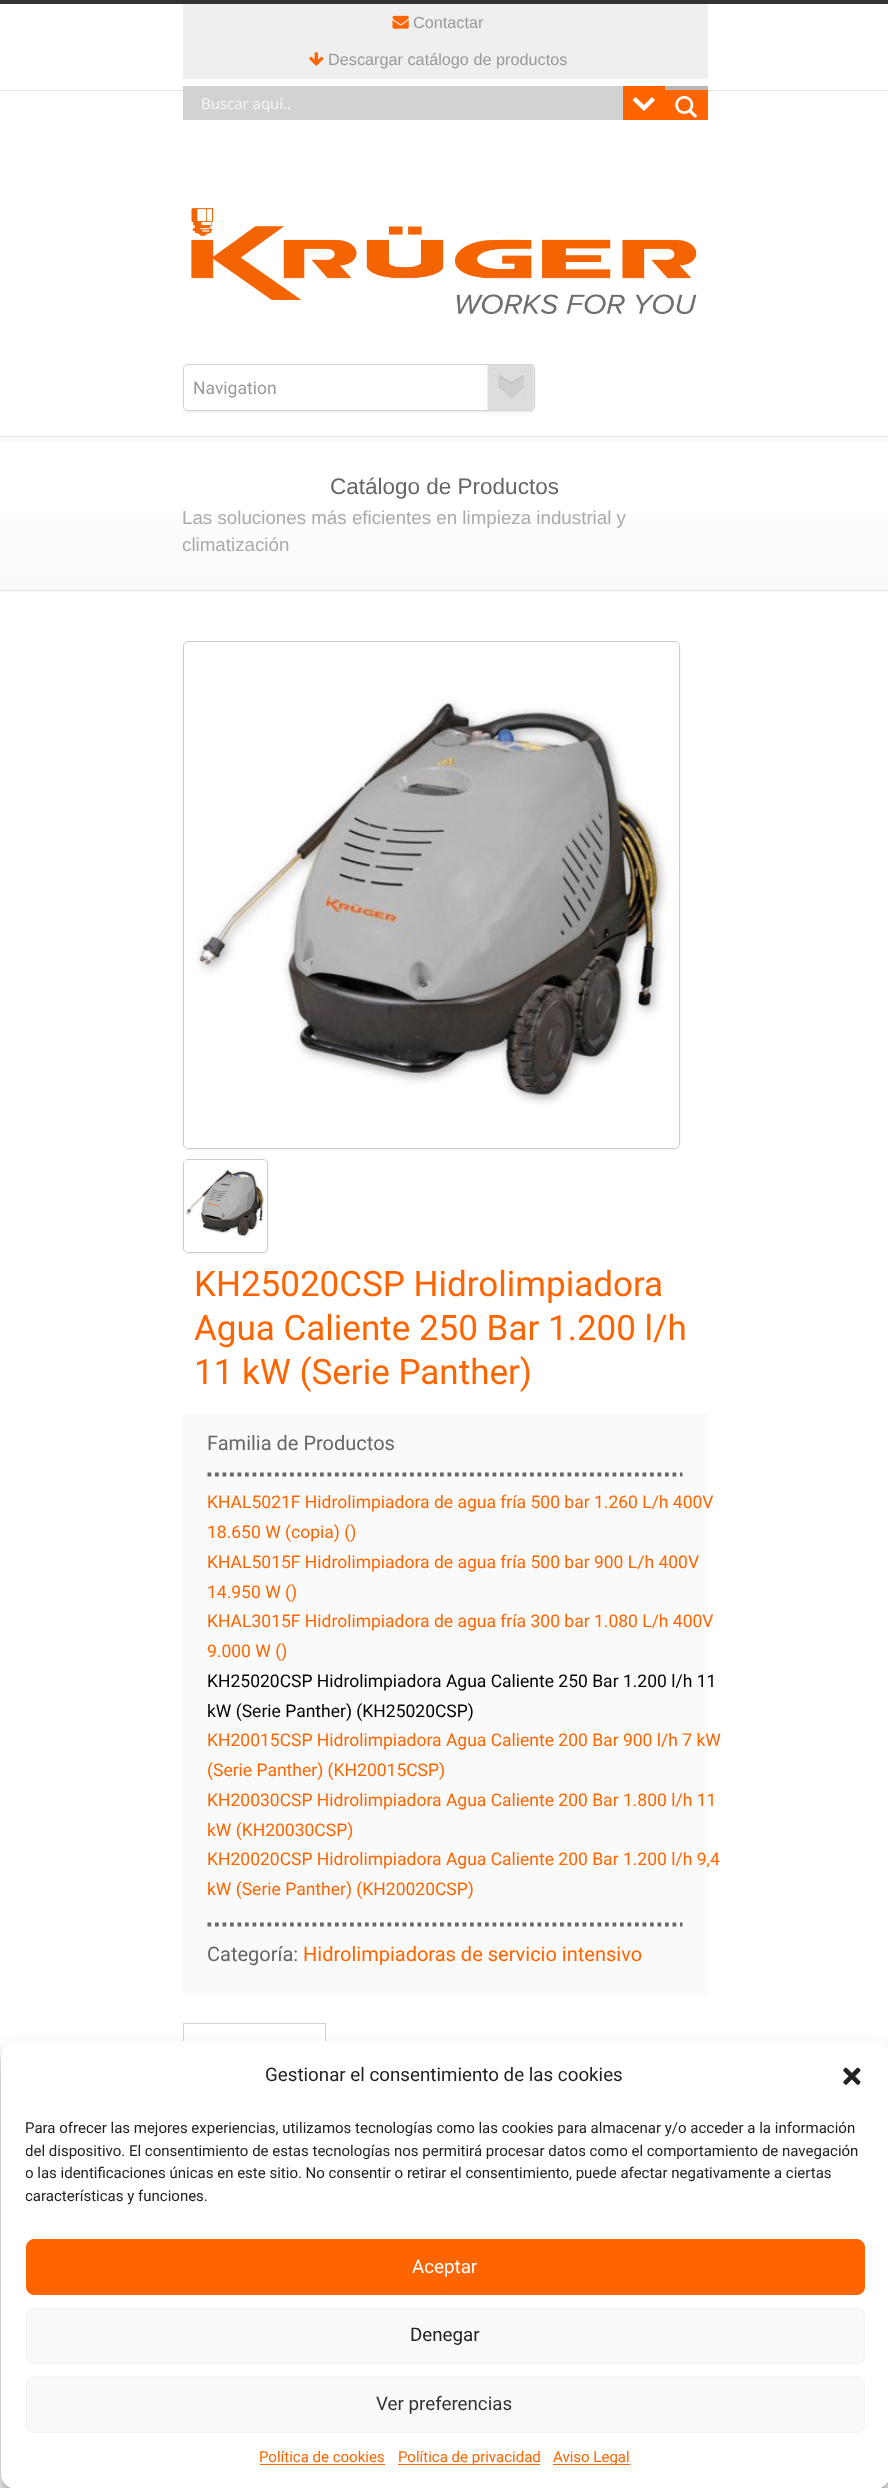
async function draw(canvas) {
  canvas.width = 888
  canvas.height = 2488
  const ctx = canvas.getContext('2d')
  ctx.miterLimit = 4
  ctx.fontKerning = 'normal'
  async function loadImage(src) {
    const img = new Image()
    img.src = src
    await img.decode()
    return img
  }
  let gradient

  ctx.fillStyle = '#fff'
  ctx.fillRect(0, 0, 888, 2488)
  ctx.fillStyle = '#333'
  ctx.fillRect(0, 0, 888, 4)
  ctx.fillStyle = '#e4e4e4'
  ctx.fillRect(0, 90, 888, 1)
  ctx.fillStyle = '#efefef'
  ctx.fillRect(183, 4, 525, 75)
  ctx.drawImage(await loadImage('image0.png'), 392, 15, 17, 14)
  ctx.font = '16.25px Liberation Sans'
  ctx.fillStyle = '#999'
  ctx.fillText('Contactar', 413, 28)
  ctx.drawImage(await loadImage('image1.png'), 309, 52, 15, 14)
  ctx.fillText('Descargar catálogo de productos', 328, 65)
  ctx.fillStyle = '#d2d2d2'
  ctx.fillRect(183, 86, 440, 34)
  ctx.font = '15px Open Sans'
  ctx.fillStyle = '#f8f8f8'
  ctx.fillText('Buscar aquí..', 201, 109)
  ctx.fillStyle = '#fe6500'
  ctx.fillRect(623, 86, 42, 34)
  ctx.fillStyle = '#fff'
  ctx.beginPath()
  ctx.moveTo(652, 97)
  ctx.lineTo(655, 100)
  ctx.lineTo(644, 111)
  ctx.lineTo(632.5, 100)
  ctx.lineTo(635.5, 97)
  ctx.lineTo(644, 105)
  ctx.closePath()
  ctx.fill()
  ctx.fillStyle = '#b6b6b6'
  ctx.fillRect(665, 86, 43, 4)
  ctx.fillStyle = '#fe6500'
  ctx.fillRect(665, 90, 43, 30)
  ctx.drawImage(await loadImage('image2.png'), 675, 95, 23, 23)
  ctx.drawImage(await loadImage('image3.png'), 191, 208, 506, 106)
  ctx.save()
  ctx.beginPath()
  ctx.moveTo(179, 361)
  ctx.lineTo(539, 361)
  ctx.lineTo(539, 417)
  ctx.lineTo(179, 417)
  ctx.closePath()
  ctx.moveTo(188, 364)
  ctx.lineTo(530, 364)
  ctx.bezierCurveTo(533, 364, 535, 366, 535, 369)
  ctx.lineTo(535, 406)
  ctx.bezierCurveTo(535, 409, 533, 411, 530, 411)
  ctx.lineTo(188, 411)
  ctx.bezierCurveTo(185, 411, 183, 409, 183, 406)
  ctx.lineTo(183, 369)
  ctx.bezierCurveTo(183, 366, 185, 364, 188, 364)
  ctx.closePath()
  ctx.clip('evenodd')
  ctx.fillStyle = '#b4b4b433'
  ctx.filter = 'blur(1px)'
  ctx.beginPath()
  ctx.roundRect(183, 365, 352, 48, 5)
  ctx.fill()
  ctx.filter = 'none'
  ctx.restore()
  ctx.drawImage(await loadImage('image4.png'), 487, 364, 47, 47)
  ctx.beginPath()
  ctx.roundRect(183.5, 364.5, 351, 46, 4.5)
  ctx.strokeStyle = '#d4d4d4'
  ctx.stroke()
  ctx.font = '17.5px Roboto'
  ctx.fillStyle = '#999'
  ctx.fillText('Navigation', 193, 394)
  gradient = ctx.createLinearGradient(444, 438, 444, 285)
  gradient.addColorStop(0, '#fafafa')
  gradient.addColorStop(1, '#fff')
  ctx.fillStyle = gradient
  ctx.fillRect(0, 437, 888, 1)
  gradient = ctx.createLinearGradient(444, 590, 444, 438)
  gradient.addColorStop(0, '#fafafa')
  gradient.addColorStop(1, '#fff')
  ctx.fillStyle = gradient
  ctx.fillRect(0, 514, 888, 76)
  ctx.fillStyle = '#fafafa'
  ctx.fillRect(0, 438, 888, 4)
  ctx.fillStyle = '#e4e4e4'
  ctx.fillRect(0, 436, 888, 1)
  ctx.fillRect(0, 590, 888, 1)
  ctx.font = '22.5px Liberation Sans'
  ctx.fillStyle = '#666'
  ctx.fillText('Catálogo de Productos', 330, 494)
  ctx.font = '18.75px Liberation Sans'
  ctx.fillStyle = '#aaa'
  ctx.fillText('Las soluciones más eficientes en limpieza industrial y', 182, 524)
  ctx.fillText('climatización', 182, 551)
  ctx.save()
  ctx.beginPath()
  ctx.moveTo(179, 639)
  ctx.lineTo(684, 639)
  ctx.lineTo(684, 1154)
  ctx.lineTo(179, 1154)
  ctx.closePath()
  ctx.moveTo(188, 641)
  ctx.lineTo(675, 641)
  ctx.bezierCurveTo(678, 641, 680, 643, 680, 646)
  ctx.lineTo(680, 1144)
  ctx.bezierCurveTo(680, 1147, 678, 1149, 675, 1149)
  ctx.lineTo(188, 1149)
  ctx.bezierCurveTo(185, 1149, 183, 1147, 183, 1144)
  ctx.lineTo(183, 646)
  ctx.bezierCurveTo(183, 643, 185, 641, 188, 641)
  ctx.closePath()
  ctx.clip('evenodd')
  ctx.fillStyle = '#b4b4b433'
  ctx.filter = 'blur(1px)'
  ctx.beginPath()
  ctx.roundRect(183, 643, 497, 507, 5)
  ctx.fill()
  ctx.filter = 'none'
  ctx.restore()
  ctx.beginPath()
  ctx.roundRect(183.5, 641.5, 496, 507, 4.5)
  ctx.strokeStyle = '#ccc'
  ctx.stroke()
  ctx.drawImage(await loadImage('image5.png'), 184, 643, 495, 462)
  ctx.save()
  ctx.beginPath()
  ctx.moveTo(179, 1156)
  ctx.lineTo(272, 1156)
  ctx.lineTo(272, 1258)
  ctx.lineTo(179, 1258)
  ctx.closePath()
  ctx.moveTo(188, 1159)
  ctx.lineTo(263, 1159)
  ctx.bezierCurveTo(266, 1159, 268, 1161, 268, 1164)
  ctx.lineTo(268, 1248)
  ctx.bezierCurveTo(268, 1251, 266, 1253, 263, 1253)
  ctx.lineTo(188, 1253)
  ctx.bezierCurveTo(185, 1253, 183, 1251, 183, 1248)
  ctx.lineTo(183, 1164)
  ctx.bezierCurveTo(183, 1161, 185, 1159, 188, 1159)
  ctx.closePath()
  ctx.clip('evenodd')
  ctx.fillStyle = '#b4b4b433'
  ctx.filter = 'blur(1px)'
  ctx.beginPath()
  ctx.roundRect(183, 1160, 85, 94, 5)
  ctx.fill()
  ctx.filter = 'none'
  ctx.restore()
  ctx.beginPath()
  ctx.roundRect(183.5, 1159.5, 84, 93, 4.5)
  ctx.stroke()
  ctx.drawImage(await loadImage('image6.png'), 184, 1160, 81, 77)
  ctx.font = '35px Roboto'
  ctx.fillStyle = '#fe6500'
  ctx.fillText('KH25020CSP Hidrolimpiadora', 194, 1296)
  ctx.fillText('Agua Caliente 250 Bar 1.200 l/h', 194, 1340)
  ctx.fillText('11 kW (Serie Panther)', 194, 1384)
  ctx.fillStyle = '#fafafa'
  ctx.beginPath()
  ctx.roundRect(183, 1413, 525, 583, 4)
  ctx.fill()
  ctx.beginPath()
  ctx.moveTo(207.5, 1474.5)
  ctx.lineTo(682.5, 1474.5)
  ctx.strokeStyle = '#666'
  ctx.lineWidth = 3.8
  ctx.setLineDash([3.75, 3.75])
  ctx.stroke()
  ctx.font = '20px Roboto'
  ctx.fillStyle = '#666'
  ctx.fillText('Familia de Productos', 207, 1450)
  ctx.font = '17.5px Roboto'
  ctx.fillStyle = '#fe6500'
  ctx.fillText('KHAL5021F Hidrolimpiadora de agua fría 500 bar 1.260 L/h 400V', 207, 1508)
  ctx.fillText('18.650 W (copia) ()', 207, 1538)
  ctx.fillText('KHAL5015F Hidrolimpiadora de agua fría 500 bar 900 L/h 400V', 207, 1568)
  ctx.fillText('14.950 W ()', 207, 1598)
  ctx.fillText('KHAL3015F Hidrolimpiadora de agua fría 300 bar 1.080 L/h 400V', 207, 1627)
  ctx.fillText('9.000 W ()', 207, 1657)
  ctx.fillStyle = '#000'
  ctx.fillText('KH25020CSP Hidrolimpiadora Agua Caliente 250 Bar 1.200 l/h 11', 207, 1687)
  ctx.fillText('kW (Serie Panther) (KH25020CSP)', 207, 1717)
  ctx.fillStyle = '#fe6500'
  ctx.fillText('KH20015CSP Hidrolimpiadora Agua Caliente 200 Bar 900 l/h 7 kW', 207, 1746)
  ctx.fillText('(Serie Panther) (KH20015CSP)', 207, 1776)
  ctx.fillText('KH20030CSP Hidrolimpiadora Agua Caliente 200 Bar 1.800 l/h 11', 207, 1806)
  ctx.fillText('kW (KH20030CSP)', 207, 1836)
  ctx.fillText('KH20020CSP Hidrolimpiadora Agua Caliente 200 Bar 1.200 l/h 9,4', 207, 1865)
  ctx.fillText('kW (Serie Panther) (KH20020CSP)', 207, 1895)
  ctx.beginPath()
  ctx.moveTo(207.5, 1924.5)
  ctx.lineTo(682.5, 1924.5)
  ctx.stroke()
  ctx.font = '20px Roboto'
  ctx.fillStyle = '#666'
  ctx.fillText('Categoría:', 207, 1961)
  ctx.fillStyle = '#fe6500'
  ctx.fillText('Hidrolimpiadoras de servicio intensivo', 303, 1961)
  ctx.fillStyle = '#d3d3d3'
  ctx.fillRect(183, 2023, 143, 1)
  ctx.fillRect(325, 2023, 1, 18)
  ctx.fillRect(183, 2023, 1, 18)
  ctx.fillStyle = '#0000003b'
  ctx.filter = 'blur(4px)'
  ctx.beginPath()
  ctx.roundRect(1, 2049, 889, 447, 15)
  ctx.fill()
  ctx.filter = 'none'
  ctx.fillStyle = '#00000030'
  ctx.filter = 'blur(12.5px)'
  ctx.beginPath()
  ctx.roundRect(1, 2054, 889, 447, 15)
  ctx.fill()
  ctx.filter = 'none'
  ctx.fillStyle = '#fff'
  ctx.beginPath()
  ctx.roundRect(1, 2041, 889, 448, 15)
  ctx.fill()
  ctx.font = '18.75px Roboto'
  ctx.fillStyle = '#222'
  ctx.fillText('Gestionar el consentimiento de las cookies', 265, 2081)
  ctx.drawImage(await loadImage('image7.png'), 843, 2067, 18, 18)
  ctx.font = '15px Roboto'
  ctx.fillText('Para ofrecer las mejores experiencias, utilizamos tecnologías como las cookies para almacenar y/o acceder a la información', 25, 2133)
  ctx.save()
  ctx.beginPath()
  ctx.rect(26, 2118, 839, 96)
  ctx.clip()
  ctx.fillText('del dispositivo. El consentimiento de estas tecnologías nos permitirá procesar datos como el comportamiento de navegación', 25, 2156)
  ctx.fillText('o las identificaciones únicas en este sitio. No consentir o retirar el consentimiento, puede afectar negativamente a ciertas', 25, 2178)
  ctx.fillText('características y funciones.', 25, 2201)
  ctx.restore()
  ctx.fillStyle = '#fe6500'
  ctx.beginPath()
  ctx.roundRect(26.5, 2239.5, 838, 55, 7.5)
  ctx.fill()
  ctx.strokeStyle = '#fe6500'
  ctx.lineWidth = 1
  ctx.setLineDash([])
  ctx.stroke()
  ctx.font = '18.75px Roboto'
  ctx.fillStyle = '#fff'
  ctx.fillText('Aceptar', 412, 2273)
  ctx.fillStyle = '#f9f9f9'
  ctx.beginPath()
  ctx.roundRect(26.5, 2308.5, 838, 55, 7.5)
  ctx.fill()
  ctx.strokeStyle = '#f2f2f2'
  ctx.stroke()
  ctx.fillStyle = '#222'
  ctx.fillText('Denegar', 410, 2341)
  ctx.fillStyle = '#f9f9f9'
  ctx.beginPath()
  ctx.roundRect(26.5, 2376.5, 838, 56, 7.5)
  ctx.fill()
  ctx.stroke()
  ctx.fillStyle = '#333'
  ctx.fillText('Ver preferencias', 376, 2410)
  ctx.font = '15px Roboto'
  ctx.fillStyle = '#fe6500'
  ctx.fillText('Política de cookies', 259, 2462)
  ctx.fillRect(260, 2464, 125, 1)
  ctx.fillRect(398, 2464, 142, 1)
  ctx.fillText('Política de privacidad', 398, 2462)
  ctx.fillRect(553, 2464, 77, 1)
  ctx.fillText('Aviso Legal', 553, 2462)
}

draw(document.querySelector('canvas'))
